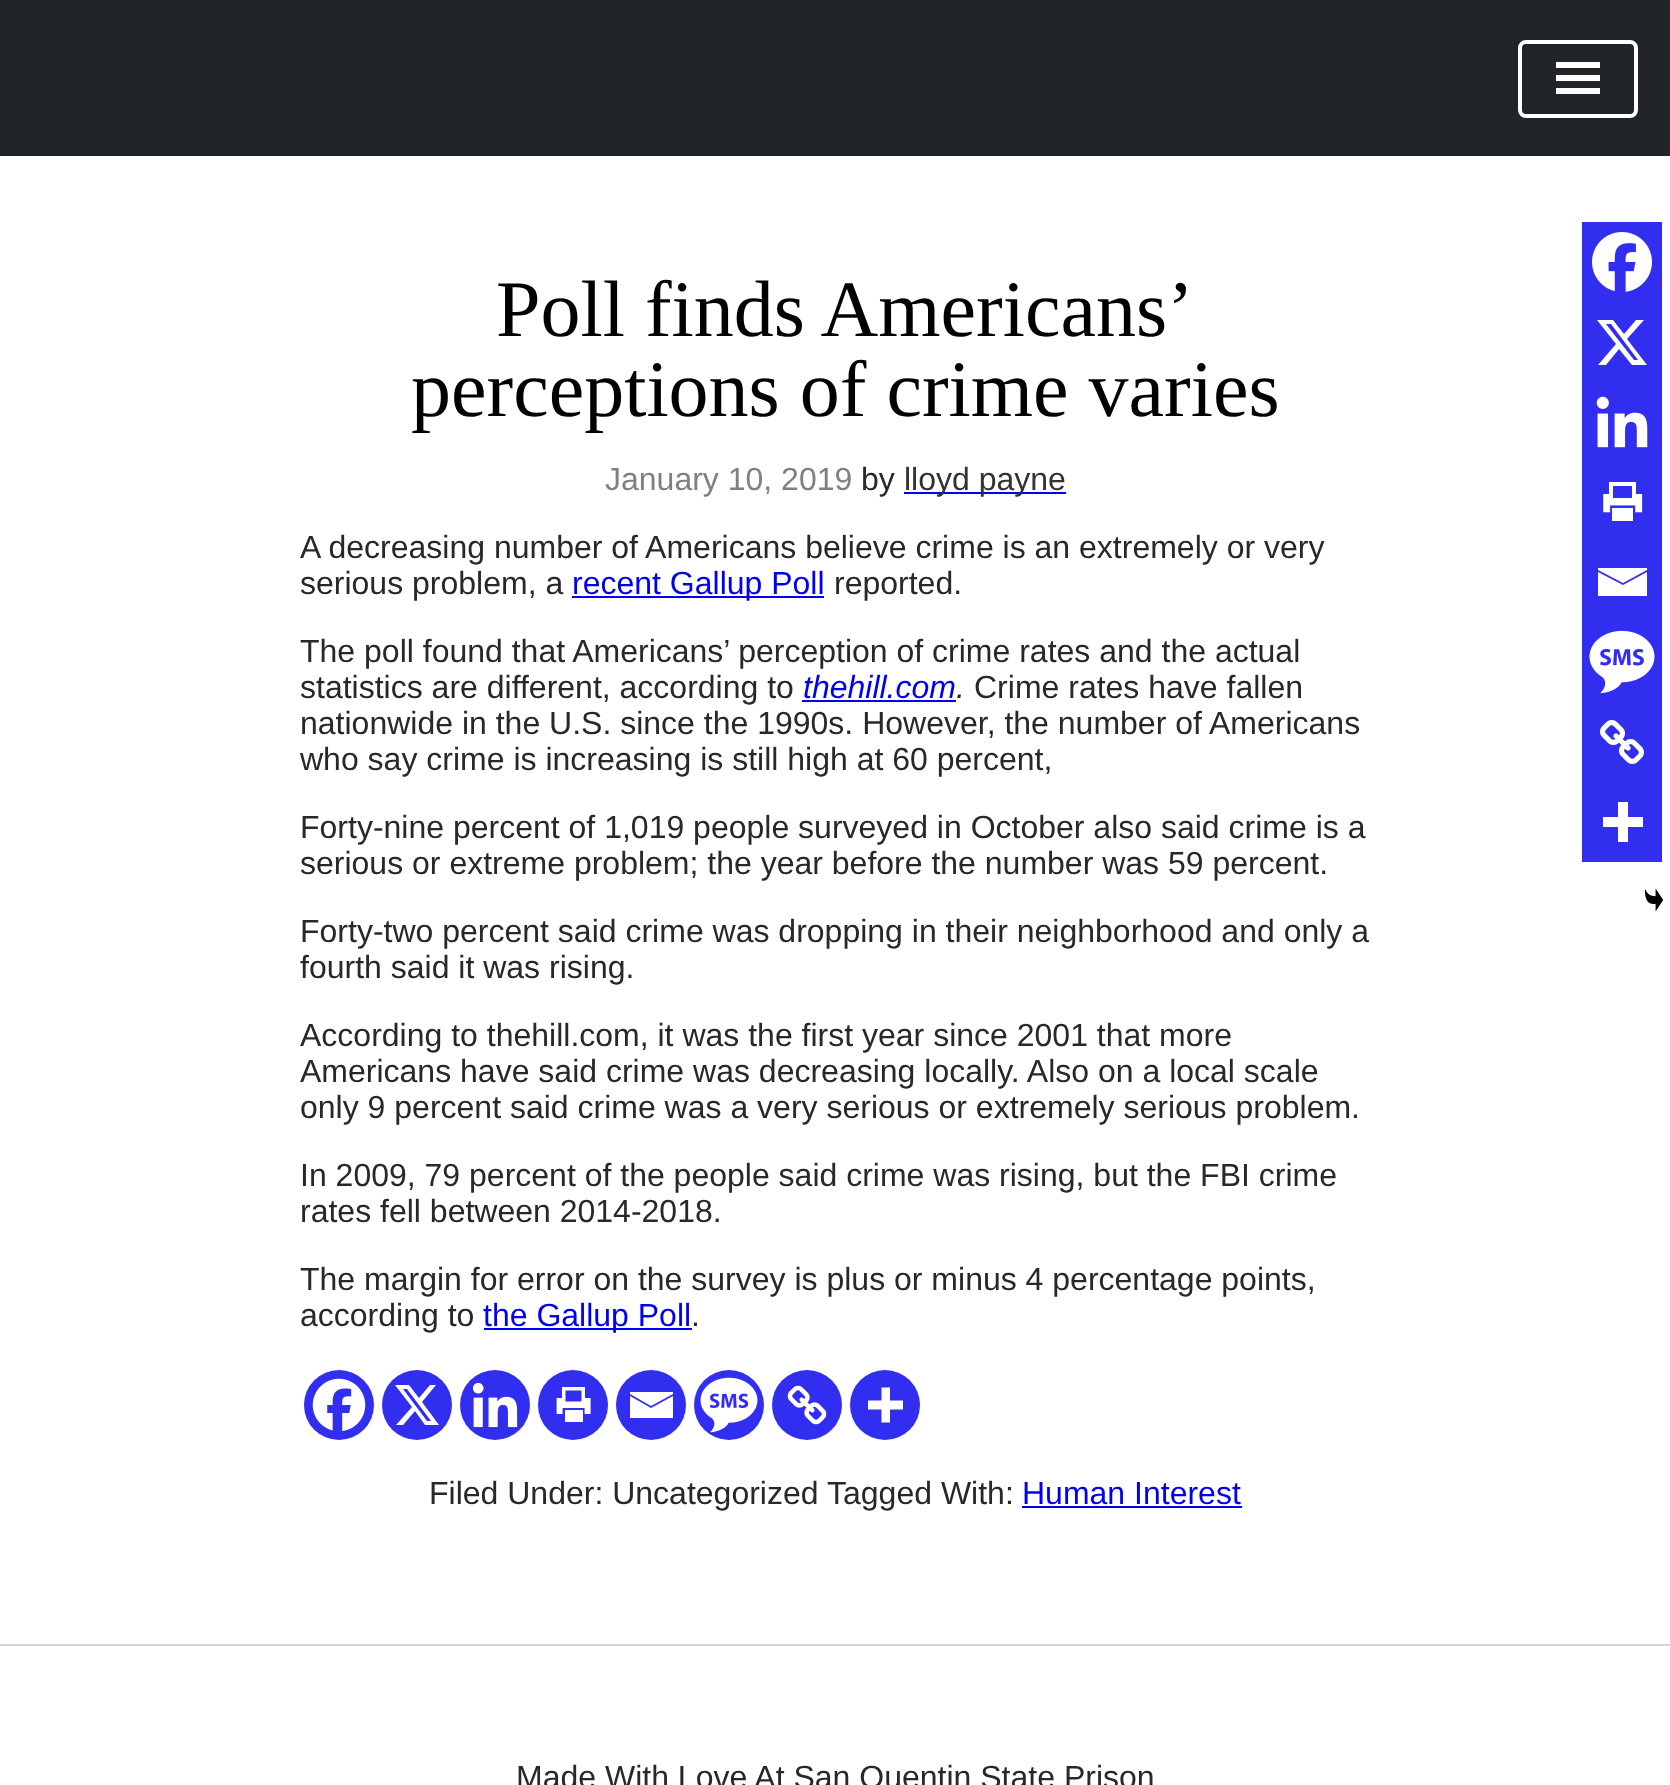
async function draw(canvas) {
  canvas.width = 1670
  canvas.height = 1785
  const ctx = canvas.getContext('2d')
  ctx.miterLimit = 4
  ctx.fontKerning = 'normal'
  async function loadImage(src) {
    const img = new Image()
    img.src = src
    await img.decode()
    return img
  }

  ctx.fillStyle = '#fff'
  ctx.fillRect(0, 0, 1670, 1785)
  ctx.fillStyle = '#212529'
  ctx.fillRect(0, 0, 1670, 156)
  ctx.beginPath()
  ctx.roundRect(1520, 42, 116, 74, 6)
  ctx.strokeStyle = '#fff'
  ctx.lineWidth = 4
  ctx.stroke()
  ctx.fillStyle = '#fff'
  ctx.beginPath()
  ctx.moveTo(1556, 94)
  ctx.lineTo(1600, 94)
  ctx.lineTo(1600, 88)
  ctx.lineTo(1556, 88)
  ctx.closePath()
  ctx.moveTo(1556, 62)
  ctx.lineTo(1556, 68)
  ctx.lineTo(1600, 68)
  ctx.lineTo(1600, 62)
  ctx.closePath()
  ctx.moveTo(1556, 81)
  ctx.lineTo(1600, 81)
  ctx.lineTo(1600, 75)
  ctx.lineTo(1556, 75)
  ctx.closePath()
  ctx.fill()
  ctx.font = '80px Liberation Serif'
  ctx.fillStyle = '#000'
  ctx.fillText('Poll finds Americans’', 496, 336)
  ctx.fillText('perceptions of crime varies', 411, 416)
  ctx.font = '32px Liberation Sans'
  ctx.fillStyle = '#808080'
  ctx.fillText('January 10, 2019', 605, 490)
  ctx.fillStyle = '#282828'
  ctx.fillText('by', 861, 490)
  ctx.fillStyle = '#00e'
  ctx.fillRect(904, 492, 162, 2)
  ctx.fillStyle = '#333'
  ctx.fillText('lloyd payne', 904, 490)
  ctx.fillStyle = '#282828'
  ctx.fillText('A decreasing number of Americans believe crime is an extremely or very', 300, 558)
  ctx.fillText('serious problem, a', 300, 594)
  ctx.fillStyle = '#00e'
  ctx.fillRect(572, 596, 252, 2)
  ctx.fillText('recent Gallup Poll', 572, 594)
  ctx.fillStyle = '#282828'
  ctx.fillText('reported.', 834, 594)
  ctx.fillStyle = '#322ef0'
  ctx.fillRect(1582, 222, 80, 640)
  ctx.drawImage(await loadImage('image0.png'), 1592, 232, 60, 60)
  ctx.fillStyle = '#fff'
  ctx.beginPath()
  ctx.moveTo(1636, 320)
  ctx.lineTo(1644, 320)
  ctx.lineTo(1627, 339)
  ctx.lineTo(1647, 365)
  ctx.lineTo(1632, 365)
  ctx.lineTo(1619, 349)
  ctx.lineTo(1606, 365)
  ctx.lineTo(1598, 365)
  ctx.lineTo(1616, 344)
  ctx.lineTo(1597, 320)
  ctx.lineTo(1613, 320)
  ctx.lineTo(1624, 334)
  ctx.closePath()
  ctx.moveTo(1634, 360)
  ctx.lineTo(1638, 360)
  ctx.lineTo(1611, 324)
  ctx.lineTo(1606, 324)
  ctx.closePath()
  ctx.fill()
  ctx.drawImage(await loadImage('image1.png'), 1596, 396, 52, 52)
  ctx.drawImage(await loadImage('image2.png'), 1603, 482, 40, 39)
  ctx.beginPath()
  ctx.moveTo(1596, 568)
  ctx.lineTo(1647, 568)
  ctx.lineTo(1647, 570)
  ctx.lineTo(1623, 583)
  ctx.lineTo(1598, 570)
  ctx.lineTo(1598, 568)
  ctx.moveTo(1598, 572)
  ctx.lineTo(1623, 585)
  ctx.lineTo(1647, 572)
  ctx.lineTo(1647, 596)
  ctx.lineTo(1598, 596)
  ctx.lineTo(1598, 572)
  ctx.fill()
  ctx.drawImage(await loadImage('image3.png'), 1589, 630, 66, 64)
  ctx.drawImage(await loadImage('image4.png'), 1600, 720, 44, 44)
  ctx.beginPath()
  ctx.moveTo(1628, 817)
  ctx.lineTo(1628, 802)
  ctx.lineTo(1618, 802)
  ctx.lineTo(1618, 817)
  ctx.lineTo(1603, 817)
  ctx.lineTo(1603, 827)
  ctx.lineTo(1618, 827)
  ctx.lineTo(1618, 842)
  ctx.lineTo(1628, 842)
  ctx.lineTo(1628, 827)
  ctx.lineTo(1643, 827)
  ctx.lineTo(1643, 817)
  ctx.closePath()
  ctx.fill('evenodd')
  ctx.drawImage(await loadImage('image5.png'), 1644, 888, 20, 24)
  ctx.fillStyle = '#282828'
  ctx.fillText('The poll found that Americans’ perception of crime rates and the actual', 300, 662)
  ctx.fillText('statistics are different, according to', 300, 698)
  ctx.font = 'italic 32px Liberation Sans'
  ctx.fillStyle = '#00e'
  ctx.fillText('thehill.com', 803, 698)
  ctx.fillStyle = '#282828'
  ctx.fillText('.', 956, 698)
  ctx.fillStyle = '#00e'
  ctx.fillRect(802, 700, 154, 2)
  ctx.font = '32px Liberation Sans'
  ctx.fillStyle = '#282828'
  ctx.fillText('Crime rates have fallen', 974, 698)
  ctx.fillText('nationwide in the U.S. since the 1990s. However, the number of Americans', 300, 734)
  ctx.fillText('who say crime is increasing is still high at 60 percent,', 300, 770)
  ctx.fillText('Forty-nine percent of 1,019 people surveyed in October also said crime is a', 300, 838)
  ctx.fillText('serious or extreme problem; the year before the number was 59 percent.', 300, 874)
  ctx.fillText('Forty-two percent said crime was dropping in their neighborhood and only a', 300, 942)
  ctx.fillText('fourth said it was rising.', 300, 978)
  ctx.fillText('According to thehill.com, it was the first year since 2001 that more', 300, 1046)
  ctx.fillText('Americans have said crime was decreasing locally. Also on a local scale', 300, 1082)
  ctx.fillText('only 9 percent said crime was a very serious or extremely serious problem.', 300, 1118)
  ctx.fillText('In 2009, 79 percent of the people said crime was rising, but the FBI crime', 300, 1186)
  ctx.fillText('rates fell between 2014-2018.', 300, 1222)
  ctx.fillText('The margin for error on the survey is plus or minus 4 percentage points,', 300, 1290)
  ctx.fillText('according to', 300, 1326)
  ctx.fillStyle = '#00e'
  ctx.fillRect(484, 1328, 208, 2)
  ctx.fillText('the Gallup Poll', 483, 1326)
  ctx.fillStyle = '#282828'
  ctx.fillText('.', 691, 1326)
  ctx.fillStyle = '#322ef0'
  ctx.beginPath()
  ctx.arc(339, 1405, 35, 0, 2 * Math.PI)
  ctx.fill()
  ctx.drawImage(await loadImage('image6.png'), 312, 1378, 54, 53)
  ctx.beginPath()
  ctx.arc(417, 1405, 35, 0, 2 * Math.PI)
  ctx.fill()
  ctx.fillStyle = '#fff'
  ctx.beginPath()
  ctx.moveTo(430, 1385)
  ctx.lineTo(436, 1385)
  ctx.lineTo(422, 1402)
  ctx.lineTo(439, 1425)
  ctx.lineTo(425, 1425)
  ctx.lineTo(415, 1411)
  ctx.lineTo(403, 1425)
  ctx.lineTo(396, 1425)
  ctx.lineTo(412, 1407)
  ctx.lineTo(395, 1385)
  ctx.lineTo(409, 1385)
  ctx.lineTo(419, 1398)
  ctx.closePath()
  ctx.moveTo(427, 1421)
  ctx.lineTo(431, 1421)
  ctx.lineTo(407, 1389)
  ctx.lineTo(403, 1389)
  ctx.closePath()
  ctx.fill()
  ctx.fillStyle = '#322ef0'
  ctx.beginPath()
  ctx.arc(495, 1405, 35, 0, 2 * Math.PI)
  ctx.fill()
  ctx.drawImage(await loadImage('image7.png'), 472, 1382, 46, 46)
  ctx.beginPath()
  ctx.arc(573, 1405, 35, 0, 2 * Math.PI)
  ctx.fill()
  ctx.drawImage(await loadImage('image8.png'), 556, 1387, 35, 35)
  ctx.beginPath()
  ctx.arc(651, 1405, 35, 0, 2 * Math.PI)
  ctx.fill()
  ctx.fillStyle = '#fff'
  ctx.beginPath()
  ctx.moveTo(628, 1392)
  ctx.lineTo(673, 1392)
  ctx.lineTo(673, 1394)
  ctx.lineTo(651, 1406)
  ctx.lineTo(630, 1394)
  ctx.lineTo(630, 1392)
  ctx.moveTo(630, 1396)
  ctx.lineTo(651, 1408)
  ctx.lineTo(673, 1396)
  ctx.lineTo(673, 1418)
  ctx.lineTo(630, 1418)
  ctx.lineTo(630, 1396)
  ctx.fill()
  ctx.fillStyle = '#322ef0'
  ctx.beginPath()
  ctx.arc(729, 1405, 35, 0, 2 * Math.PI)
  ctx.fill()
  ctx.drawImage(await loadImage('image9.png'), 700, 1377, 58, 56)
  ctx.beginPath()
  ctx.arc(807, 1405, 35, 0, 2 * Math.PI)
  ctx.fill()
  ctx.drawImage(await loadImage('image10.png'), 787, 1385, 40, 40)
  ctx.beginPath()
  ctx.arc(885, 1405, 35, 0, 2 * Math.PI)
  ctx.fill()
  ctx.fillStyle = '#fff'
  ctx.beginPath()
  ctx.moveTo(890, 1400.5)
  ctx.lineTo(890, 1387.5)
  ctx.lineTo(881.5, 1387.5)
  ctx.lineTo(881.5, 1400.5)
  ctx.lineTo(868, 1400.5)
  ctx.lineTo(868, 1409.5)
  ctx.lineTo(881.5, 1409.5)
  ctx.lineTo(881.5, 1422.5)
  ctx.lineTo(890, 1422.5)
  ctx.lineTo(890, 1409.5)
  ctx.lineTo(903, 1409.5)
  ctx.lineTo(903, 1400.5)
  ctx.closePath()
  ctx.fill('evenodd')
  ctx.fillStyle = '#282828'
  ctx.fillText('Filed Under: Uncategorized', 429, 1504)
  ctx.fillText('Tagged With:', 827, 1504)
  ctx.fillStyle = '#00e'
  ctx.fillText('Human Interest', 1022, 1504)
  ctx.fillRect(1022, 1506, 220, 2)
  ctx.fillStyle = '#d5d5d5'
  ctx.fillRect(0, 1644, 1670, 2)
  ctx.fillStyle = '#282828'
  ctx.fillText('Made With Love At San Quentin State Prison', 516, 1788)
}

draw(document.querySelector('canvas'))
